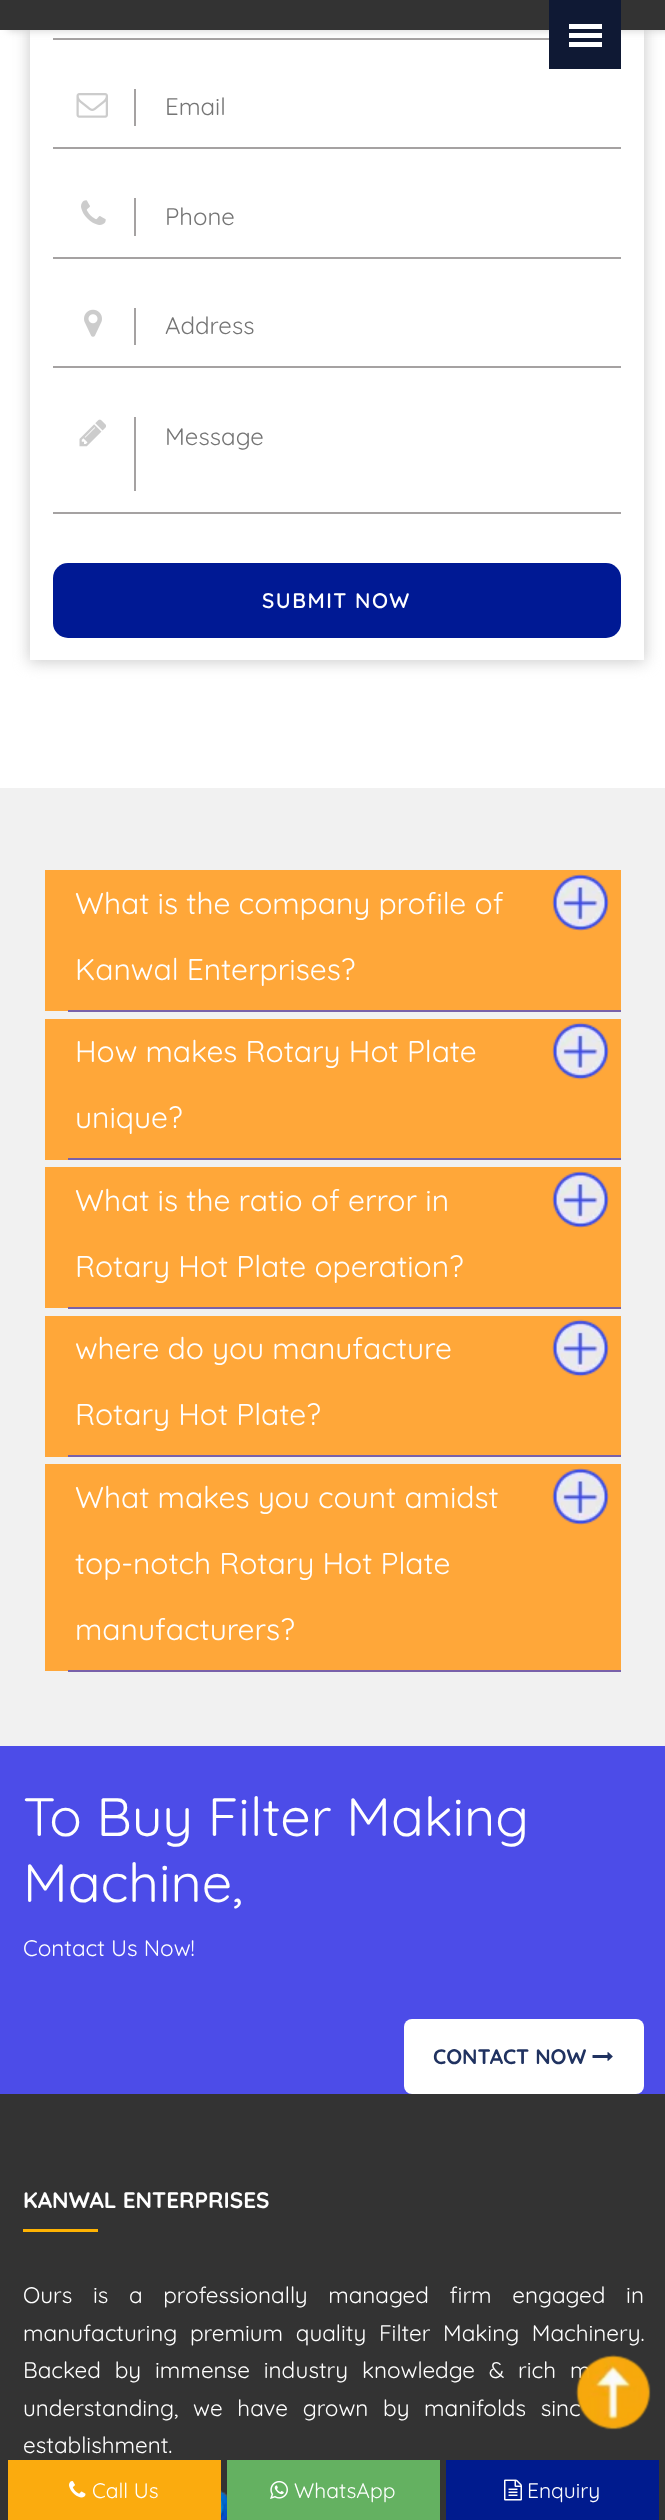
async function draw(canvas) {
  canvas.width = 665
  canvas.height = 2520
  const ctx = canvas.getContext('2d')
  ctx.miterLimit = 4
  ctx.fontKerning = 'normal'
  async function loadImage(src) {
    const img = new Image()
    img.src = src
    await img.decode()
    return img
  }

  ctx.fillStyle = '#fff'
  ctx.fillRect(0, 0, 665, 2520)
  ctx.fillStyle = '#ccc'
  ctx.filter = 'blur(7.5px)'
  ctx.beginPath()
  ctx.rect(29, -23, 616, 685)
  ctx.fill()
  ctx.filter = 'none'
  ctx.fillStyle = '#fff'
  ctx.fillRect(30, 30, 614, 630)
  ctx.fillStyle = '#a5a2a2'
  ctx.fillRect(53, 38, 496, 2)
  ctx.fillStyle = '#ccc'
  ctx.filter = 'blur(4px)'
  ctx.beginPath()
  ctx.rect(8, 0, 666, 30)
  ctx.fill()
  ctx.filter = 'none'
  ctx.fillStyle = '#333'
  ctx.fillRect(0, 0, 665, 30)
  ctx.fillStyle = '#0f1934'
  ctx.fillRect(549, 0, 72, 69)
  ctx.fillStyle = '#fff'
  ctx.fillRect(569, 24, 33, 5)
  ctx.fillRect(569, 33, 33, 5)
  ctx.fillRect(569, 42, 33, 5)
  ctx.fillStyle = '#a5a2a2'
  ctx.fillRect(53, 147, 568, 2)
  ctx.drawImage(await loadImage('image0.png'), 76, 93, 32, 25)
  ctx.fillRect(134, 89, 2, 37)
  ctx.font = '24px Quicksand'
  ctx.fillStyle = '#757575'
  ctx.fillText('Email', 165, 115)
  ctx.fillStyle = '#a5a2a2'
  ctx.fillRect(53, 257, 568, 2)
  ctx.drawImage(await loadImage('image1.png'), 81, 200, 25, 25)
  ctx.fillRect(134, 198, 2, 38)
  ctx.fillStyle = '#757575'
  ctx.fillText('Phone', 165, 225)
  ctx.fillStyle = '#a5a2a2'
  ctx.fillRect(53, 366, 568, 2)
  ctx.drawImage(await loadImage('image2.png'), 84, 309, 18, 28)
  ctx.fillRect(134, 308, 2, 37)
  ctx.fillStyle = '#757575'
  ctx.fillText('Address', 165, 334)
  ctx.fillStyle = '#a5a2a2'
  ctx.fillRect(53, 512, 568, 2)
  ctx.drawImage(await loadImage('image3.png'), 79, 419, 27, 28)
  ctx.fillRect(134, 417, 2, 74)
  ctx.fillStyle = '#757575'
  ctx.fillText('Message', 165, 445)
  ctx.fillStyle = '#001994'
  ctx.beginPath()
  ctx.roundRect(53, 563, 568, 75, 15)
  ctx.fill()
  ctx.letterSpacing = '1.5px'
  ctx.font = '600 21px Quicksand'
  ctx.fillStyle = '#fff'
  ctx.fillText('SUBMIT NOW', 262, 608)
  ctx.fillStyle = '#f1f1f1'
  ctx.fillRect(0, 788, 665, 958)
  ctx.fillStyle = '#ffa739'
  ctx.fillRect(45, 870, 576, 141)
  ctx.letterSpacing = '0px'
  ctx.font = '30px Quicksand'
  ctx.fillStyle = '#fff'
  ctx.fillText('What is the company profile of', 75, 914)
  ctx.fillText('Kanwal Enterprises?', 75, 980)
  ctx.drawImage(await loadImage('image4.png'), 552, 874, 57, 57)
  ctx.fillStyle = '#7961aa'
  ctx.fillRect(68, 1010, 553, 2)
  ctx.fillStyle = '#ffa739'
  ctx.fillRect(45, 1019, 576, 141)
  ctx.fillStyle = '#fff'
  ctx.fillText('How makes Rotary Hot Plate', 75, 1062)
  ctx.fillText('unique?', 75, 1128)
  ctx.drawImage(await loadImage('image5.png'), 552, 1022, 57, 58)
  ctx.fillStyle = '#7961aa'
  ctx.fillRect(68, 1158, 553, 2)
  ctx.fillStyle = '#ffa739'
  ctx.fillRect(45, 1167, 576, 141)
  ctx.fillStyle = '#fff'
  ctx.fillText('What is the ratio of error in', 75, 1211)
  ctx.fillText('Rotary Hot Plate operation?', 75, 1277)
  ctx.drawImage(await loadImage('image4.png'), 552, 1171, 57, 57)
  ctx.fillStyle = '#7961aa'
  ctx.fillRect(68, 1307, 553, 2)
  ctx.fillStyle = '#ffa739'
  ctx.fillRect(45, 1316, 576, 141)
  ctx.fillStyle = '#fff'
  ctx.fillText('where do you manufacture', 75, 1359)
  ctx.fillText('Rotary Hot Plate?', 75, 1425)
  ctx.drawImage(await loadImage('image5.png'), 552, 1319, 57, 58)
  ctx.fillStyle = '#7961aa'
  ctx.fillRect(68, 1455, 553, 2)
  ctx.fillStyle = '#ffa739'
  ctx.fillRect(45, 1464, 576, 207)
  ctx.fillStyle = '#fff'
  ctx.fillText('What makes you count amidst', 75, 1508)
  ctx.fillText('top-notch Rotary Hot Plate', 75, 1574)
  ctx.fillText('manufacturers?', 75, 1640)
  ctx.drawImage(await loadImage('image4.png'), 552, 1468, 57, 57)
  ctx.fillStyle = '#7961aa'
  ctx.fillRect(68, 1670, 553, 2)
  ctx.fillStyle = '#4c4ce8'
  ctx.fillRect(0, 1746, 665, 348)
  ctx.font = '54px Quicksand'
  ctx.fillStyle = '#fff'
  ctx.fillText('To Buy Filter Making', 23, 1836)
  ctx.fillText('Machine,', 23, 1902)
  ctx.font = '22.5px Quicksand'
  ctx.fillText('Contact Us Now!', 23, 1956)
  ctx.beginPath()
  ctx.roundRect(404, 2019, 240, 75, 8)
  ctx.fill()
  ctx.font = 'bold 21px Quicksand'
  ctx.fillStyle = '#203260'
  ctx.fillText('CONTACT NOW', 433, 2064)
  ctx.drawImage(await loadImage('image6.png'), 592, 2052, 21, 9)
  ctx.fillStyle = '#333'
  ctx.fillRect(0, 2094, 665, 426)
  ctx.font = 'bold 22.5px Quicksand'
  ctx.fillStyle = '#fff'
  ctx.fillText('KANWAL ENTERPRISES', 23, 2208)
  ctx.fillStyle = '#ffb302'
  ctx.fillRect(23, 2229, 75, 3)
  ctx.wordSpacing = '14.5px'
  ctx.font = '22.5px Quicksand'
  ctx.fillStyle = '#fff'
  ctx.fillText('Ours is a professionally managed firm engaged in', 23, 2303)
  ctx.wordSpacing = '6.5px'
  ctx.fillText('manufacturing premium quality Filter Making Machinery.', 23, 2341)
  ctx.wordSpacing = '7.75px'
  ctx.fillText('Backed by immense industry knowledge & rich m', 23, 2378)
  ctx.wordSpacing = '8.5px'
  ctx.fillText('understanding, we have grown by manifolds sinc', 23, 2416)
  ctx.wordSpacing = '0px'
  ctx.fillText('establishment.', 23, 2453)
  ctx.drawImage(await loadImage('image7.png'), 221, 2490, 6, 30)
  ctx.drawImage(await loadImage('image8.png'), 575, 2354, 76, 76)
  ctx.fillStyle = '#fbab0e'
  ctx.fillRect(8, 2460, 213, 60)
  ctx.drawImage(await loadImage('image9.png'), 69, 2481, 17, 17)
  ctx.font = '21px Quicksand'
  ctx.fillStyle = '#fff'
  ctx.fillText('Call Us', 92, 2498)
  ctx.fillStyle = '#64b161'
  ctx.fillRect(227, 2460, 213, 60)
  ctx.drawImage(await loadImage('image10.png'), 270, 2480, 18, 19)
  ctx.fillStyle = '#fff'
  ctx.fillText('WhatsApp', 294, 2498)
  ctx.fillStyle = '#001b8e'
  ctx.fillRect(446, 2460, 213, 60)
  ctx.drawImage(await loadImage('image11.png'), 504, 2479, 18, 22)
  ctx.fillStyle = '#fff'
  ctx.fillText('Enquiry', 527, 2498)
}

draw(document.querySelector('canvas'))
